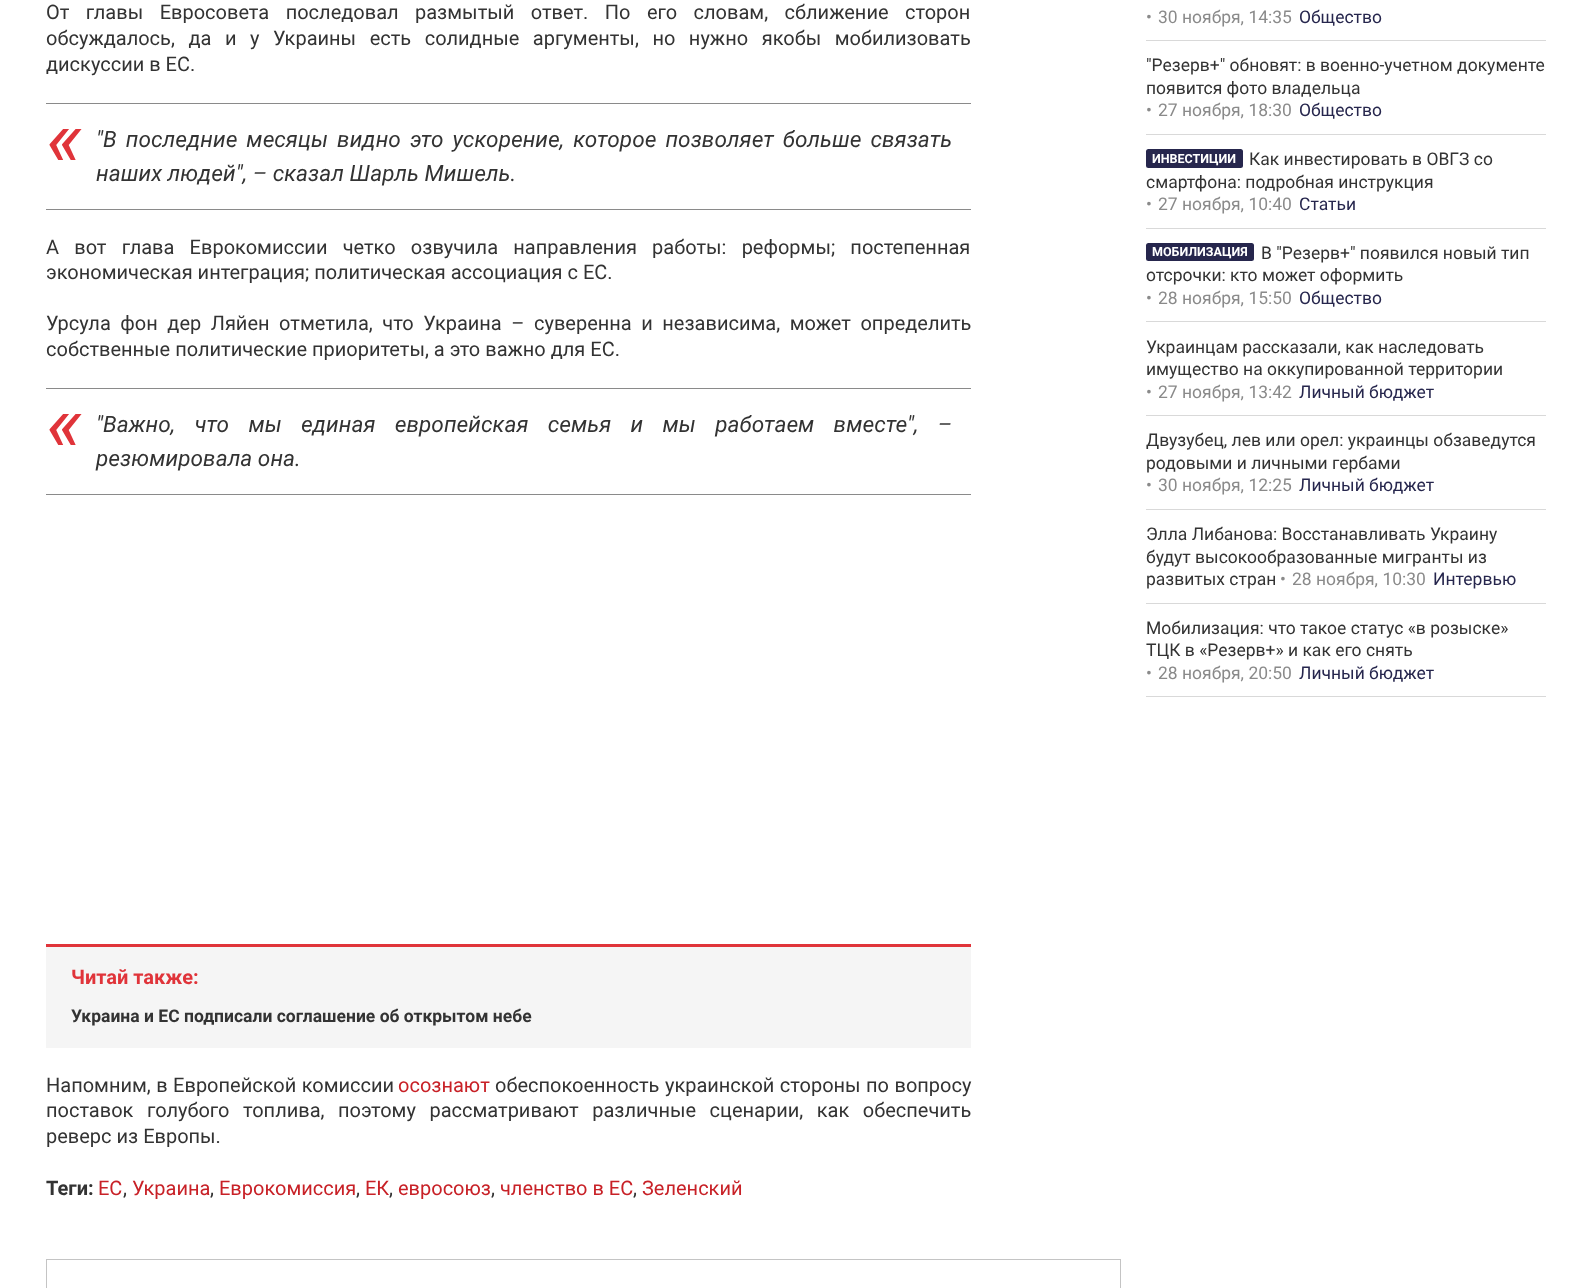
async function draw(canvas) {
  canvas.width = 1591
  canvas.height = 1288
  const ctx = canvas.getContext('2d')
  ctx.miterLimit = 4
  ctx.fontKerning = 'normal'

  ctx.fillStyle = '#fff'
  ctx.fillRect(0, 0, 1591, 1288)
  ctx.wordSpacing = '11.5px'
  ctx.font = '20px Roboto'
  ctx.fillStyle = '#333'
  ctx.fillText('От главы Евросовета последовал размытый ответ. По его словам, сближение сторон', 46, 19)
  ctx.wordSpacing = '8.6px'
  ctx.fillText('обсуждалось, да и у Украины есть солидные аргументы, но нужно якобы мобилизовать', 46, 45)
  ctx.wordSpacing = '0px'
  ctx.fillText('дискуссии в ЕС.', 46, 71)
  ctx.fillStyle = '#8a8a8a'
  ctx.fillRect(46, 103, 925, 1)
  ctx.fillRect(46, 209, 925, 1)
  ctx.font = 'italic 80px Roboto'
  ctx.fillStyle = '#e0343a'
  ctx.fillText('«', 46, 166)
  ctx.wordSpacing = '3.5px'
  ctx.font = 'italic 22.5px Roboto'
  ctx.fillStyle = '#333'
  ctx.fillText('"В последние месяцы видно это ускорение, которое позволяет больше связать', 96, 147)
  ctx.wordSpacing = '0px'
  ctx.fillText('наших людей", – сказал Шарль Мишель.', 96, 181)
  ctx.wordSpacing = '10.25px'
  ctx.font = '20px Roboto'
  ctx.fillText('А вот глава Еврокомиссии четко озвучила направления работы: реформы; постепенная', 46, 254)
  ctx.wordSpacing = '0px'
  ctx.fillText('экономическая интеграция; политическая ассоциация с ЕС.', 46, 279)
  ctx.wordSpacing = '4.6px'
  ctx.fillText('Урсула фон дер Ляйен отметила, что Украина – суверенна и независима, может определить', 46, 330)
  ctx.wordSpacing = '0px'
  ctx.fillText('собственные политические приоритеты, а это важно для ЕС.', 46, 356)
  ctx.fillStyle = '#8a8a8a'
  ctx.fillRect(46, 388, 925, 1)
  ctx.fillRect(46, 494, 925, 1)
  ctx.font = 'italic 80px Roboto'
  ctx.fillStyle = '#e0343a'
  ctx.fillText('«', 46, 451)
  ctx.wordSpacing = '13.75px'
  ctx.font = 'italic 22.5px Roboto'
  ctx.fillStyle = '#333'
  ctx.fillText('"Важно, что мы единая европейская семья и мы работаем вместе", –', 96, 432)
  ctx.wordSpacing = '0px'
  ctx.fillText('резюмировала она.', 96, 466)
  ctx.fillStyle = '#f5f5f5'
  ctx.fillRect(46, 947, 925, 101)
  ctx.fillStyle = '#e0343a'
  ctx.fillRect(46, 944, 925, 3)
  ctx.font = 'bold 20px Roboto'
  ctx.fillText('Читай также:', 71, 984)
  ctx.font = 'bold 17.5px Roboto'
  ctx.fillStyle = '#333'
  ctx.fillText('Украина и ЕС подписали соглашение об открытом небе', 71, 1022)
  ctx.wordSpacing = '0.5px'
  ctx.font = '20px Roboto'
  ctx.fillText('Напомним, в Европейской комиссии', 46, 1092)
  ctx.wordSpacing = '0px'
  ctx.fillStyle = '#c82127'
  ctx.fillText('осознают', 398, 1092)
  ctx.wordSpacing = '0.5px'
  ctx.fillStyle = '#333'
  ctx.fillText('обеспокоенность украинской стороны по вопросу', 495, 1092)
  ctx.wordSpacing = '8.6px'
  ctx.fillText('поставок голубого топлива, поэтому рассматривают различные сценарии, как обеспечить', 46, 1117)
  ctx.wordSpacing = '0px'
  ctx.fillText('реверс из Европы.', 46, 1143)
  ctx.font = 'bold 20px Roboto'
  ctx.fillText('Теги:', 46, 1195)
  ctx.font = '20px Roboto'
  ctx.fillStyle = '#c82127'
  ctx.fillText('ЕС', 98, 1195)
  ctx.fillStyle = '#333'
  ctx.fillText(',', 123, 1195)
  ctx.fillStyle = '#c82127'
  ctx.fillText('Украина', 132, 1195)
  ctx.fillStyle = '#333'
  ctx.fillText(',', 210, 1195)
  ctx.fillStyle = '#c82127'
  ctx.fillText('Еврокомиссия', 219, 1195)
  ctx.fillStyle = '#333'
  ctx.fillText(',', 356, 1195)
  ctx.fillStyle = '#c82127'
  ctx.fillText('ЕК', 365, 1195)
  ctx.fillStyle = '#333'
  ctx.fillText(',', 389, 1195)
  ctx.fillStyle = '#c82127'
  ctx.fillText('евросоюз', 398, 1195)
  ctx.fillStyle = '#333'
  ctx.fillText(',', 491, 1195)
  ctx.fillStyle = '#c82127'
  ctx.fillText('членство в ЕС', 500, 1195)
  ctx.fillStyle = '#333'
  ctx.fillText(',', 633, 1195)
  ctx.fillStyle = '#c82127'
  ctx.fillText('Зеленский', 642, 1195)
  ctx.strokeStyle = '#c4c4c4'
  ctx.strokeRect(46.5, 1259.5, 1074, 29)
  ctx.fillStyle = '#d9d9d9'
  ctx.fillRect(1146, 40, 400, 1)
  ctx.font = '17.5px Roboto'
  ctx.fillStyle = '#8a8a8a'
  ctx.fillText('•', 1146, 23)
  ctx.fillText('30 ноября, 14:35', 1158, 23)
  ctx.fillStyle = '#26264d'
  ctx.fillText('Общество', 1299, 23)
  ctx.fillStyle = '#d9d9d9'
  ctx.fillRect(1146, 134, 400, 1)
  ctx.fillStyle = '#333'
  ctx.fillText('"Резерв+" обновят: в военно-учетном документе', 1146, 71)
  ctx.fillText('появится фото владельца', 1146, 94)
  ctx.fillStyle = '#8a8a8a'
  ctx.fillText('•', 1146, 116)
  ctx.fillText('27 ноября, 18:30', 1158, 116)
  ctx.fillStyle = '#26264d'
  ctx.fillText('Общество', 1299, 116)
  ctx.fillStyle = '#d9d9d9'
  ctx.fillRect(1146, 228, 400, 1)
  ctx.fillStyle = '#26264d'
  ctx.beginPath()
  ctx.roundRect(1146, 149, 97, 19, 2.5)
  ctx.fill()
  ctx.font = 'bold 12.5px Roboto'
  ctx.fillStyle = '#fff'
  ctx.fillText('ИНВЕСТИЦИИ', 1152, 163)
  ctx.font = '17.5px Roboto'
  ctx.fillStyle = '#333'
  ctx.fillText('Как инвестировать в ОВГЗ со', 1249, 165)
  ctx.fillText('смартфона: подробная инструкция', 1146, 188)
  ctx.fillStyle = '#8a8a8a'
  ctx.fillText('•', 1146, 210)
  ctx.fillText('27 ноября, 10:40', 1158, 210)
  ctx.fillStyle = '#26264d'
  ctx.fillText('Статьи', 1299, 210)
  ctx.fillStyle = '#d9d9d9'
  ctx.fillRect(1146, 321, 400, 1)
  ctx.fillStyle = '#26264d'
  ctx.beginPath()
  ctx.roundRect(1146, 243, 108, 18, 2.5)
  ctx.fill()
  ctx.font = 'bold 12.5px Roboto'
  ctx.fillStyle = '#fff'
  ctx.fillText('МОБИЛИЗАЦИЯ', 1152, 256)
  ctx.font = '17.5px Roboto'
  ctx.fillStyle = '#333'
  ctx.fillText('В "Резерв+" появился новый тип', 1261, 259)
  ctx.fillText('отсрочки: кто может оформить', 1146, 281)
  ctx.fillStyle = '#8a8a8a'
  ctx.fillText('•', 1146, 304)
  ctx.fillText('28 ноября, 15:50', 1158, 304)
  ctx.fillStyle = '#26264d'
  ctx.fillText('Общество', 1299, 304)
  ctx.fillStyle = '#d9d9d9'
  ctx.fillRect(1146, 415, 400, 1)
  ctx.fillStyle = '#333'
  ctx.fillText('Украинцам рассказали, как наследовать', 1146, 353)
  ctx.fillText('имущество на оккупированной территории', 1146, 375)
  ctx.fillStyle = '#8a8a8a'
  ctx.fillText('•', 1146, 398)
  ctx.fillText('27 ноября, 13:42', 1158, 398)
  ctx.fillStyle = '#26264d'
  ctx.fillText('Личный бюджет', 1299, 398)
  ctx.fillStyle = '#d9d9d9'
  ctx.fillRect(1146, 509, 400, 1)
  ctx.fillStyle = '#333'
  ctx.fillText('Двузубец, лев или орел: украинцы обзаведутся', 1146, 446)
  ctx.fillText('родовыми и личными гербами', 1146, 469)
  ctx.fillStyle = '#8a8a8a'
  ctx.fillText('•', 1146, 491)
  ctx.fillText('30 ноября, 12:25', 1158, 491)
  ctx.fillStyle = '#26264d'
  ctx.fillText('Личный бюджет', 1299, 491)
  ctx.fillStyle = '#d9d9d9'
  ctx.fillRect(1146, 603, 400, 1)
  ctx.fillStyle = '#333'
  ctx.fillText('Элла Либанова: Восстанавливать Украину', 1146, 540)
  ctx.fillText('будут высокообразованные мигранты из', 1146, 563)
  ctx.fillText('развитых стран', 1146, 585)
  ctx.fillStyle = '#8a8a8a'
  ctx.fillText('•', 1280, 585)
  ctx.fillText('28 ноября, 10:30', 1292, 585)
  ctx.fillStyle = '#26264d'
  ctx.fillText('Интервью', 1433, 585)
  ctx.fillStyle = '#d9d9d9'
  ctx.fillRect(1146, 696, 400, 1)
  ctx.fillStyle = '#333'
  ctx.fillText('Мобилизация: что такое статус «в розыске»', 1146, 634)
  ctx.fillText('ТЦК в «Резерв+» и как его снять', 1146, 656)
  ctx.fillStyle = '#8a8a8a'
  ctx.fillText('•', 1146, 679)
  ctx.fillText('28 ноября, 20:50', 1158, 679)
  ctx.fillStyle = '#26264d'
  ctx.fillText('Личный бюджет', 1299, 679)
}

draw(document.querySelector('canvas'))
